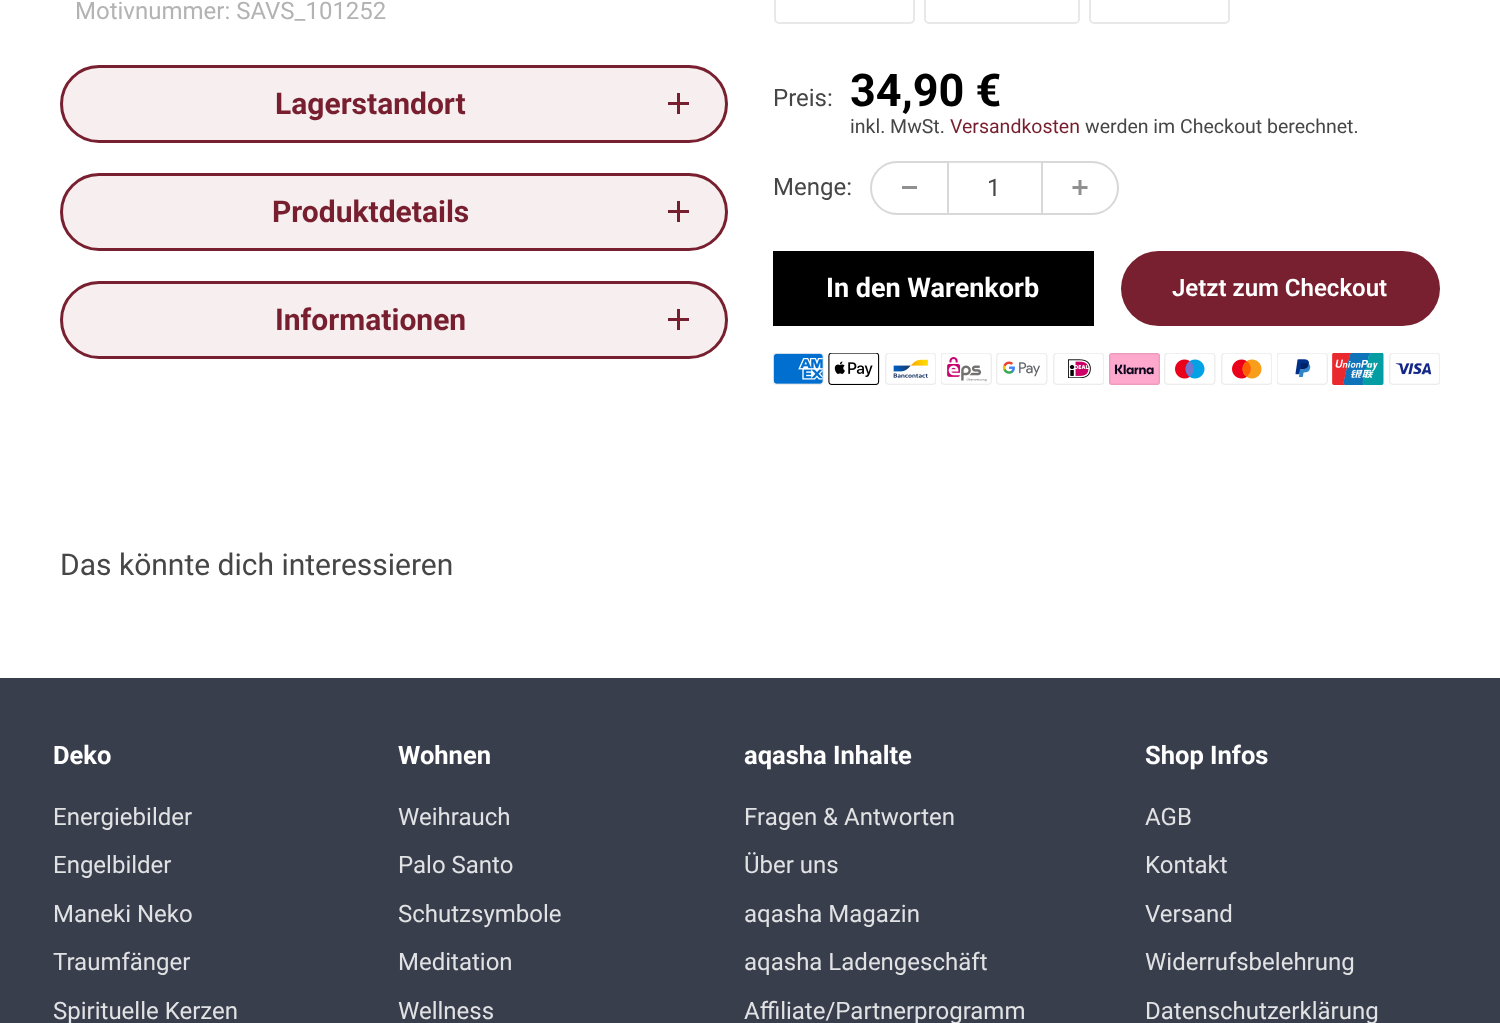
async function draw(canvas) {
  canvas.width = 1500
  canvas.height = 1023
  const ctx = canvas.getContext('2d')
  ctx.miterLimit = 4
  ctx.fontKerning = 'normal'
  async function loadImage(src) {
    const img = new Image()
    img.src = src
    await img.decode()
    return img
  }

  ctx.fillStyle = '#fff'
  ctx.fillRect(0, 0, 1500, 1023)
  ctx.font = '24px Roboto'
  ctx.fillStyle = '#b3b3b3'
  ctx.fillText('Motivnummer: SAVS_101252', 75, 19)
  ctx.fillStyle = '#f6eeef'
  ctx.beginPath()
  ctx.roundRect(61.5, 66.5, 665, 75, 37.5)
  ctx.fill()
  ctx.strokeStyle = '#78202f'
  ctx.lineWidth = 3
  ctx.stroke()
  ctx.font = 'bold 30px Roboto'
  ctx.fillStyle = '#781f2f'
  ctx.fillText('Lagerstandort', 275, 114)
  ctx.fillRect(677, 93, 3, 21)
  ctx.fillRect(668, 102, 21, 3)
  ctx.beginPath()
  ctx.roundRect(775, -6, 139, 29, 4)
  ctx.strokeStyle = '#e8e8e8'
  ctx.lineWidth = 2
  ctx.stroke()
  ctx.beginPath()
  ctx.roundRect(925, -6, 154, 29, 4)
  ctx.stroke()
  ctx.beginPath()
  ctx.roundRect(1090, -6, 139, 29, 4)
  ctx.stroke()
  ctx.font = '24px Roboto'
  ctx.fillStyle = '#464646'
  ctx.fillText('Preis:', 773, 106)
  ctx.font = 'bold 45px Roboto'
  ctx.fillStyle = '#000'
  ctx.fillText('34,90 €', 850, 106)
  ctx.font = '19.5px Roboto'
  ctx.fillStyle = '#464646'
  ctx.fillText('inkl. MwSt.', 850, 133)
  ctx.fillStyle = '#781f2f'
  ctx.fillText('Versandkosten', 950, 133)
  ctx.fillStyle = '#464646'
  ctx.fillText('werden im Checkout berechnet.', 1085, 133)
  ctx.font = '24px Roboto'
  ctx.fillText('Menge:', 773, 195)
  ctx.beginPath()
  ctx.roundRect(871, 162, 247, 52, 26)
  ctx.strokeStyle = '#d8d8d8'
  ctx.stroke()
  ctx.fillStyle = '#909090'
  ctx.fillRect(902, 186, 15, 3)
  ctx.fillStyle = '#f5f5f566'
  ctx.fillRect(948, 162, 93, 2)
  ctx.fillStyle = '#d8d8d8'
  ctx.fillRect(1041, 162, 2, 51)
  ctx.fillRect(947, 162, 2, 51)
  ctx.fillStyle = '#464646'
  ctx.fillText('1', 987, 196)
  ctx.drawImage(await loadImage('image0.png'), 1072, 180, 16, 15)
  ctx.fillStyle = '#000'
  ctx.fillRect(773, 251, 321, 75)
  ctx.font = 'bold 27px Roboto'
  ctx.fillStyle = '#fff'
  ctx.fillText('In den Warenkorb', 826, 297)
  ctx.fillStyle = '#78202f'
  ctx.beginPath()
  ctx.roundRect(1121, 251, 319, 75, 37.5)
  ctx.fill()
  ctx.font = '600 24px Roboto'
  ctx.fillStyle = '#fff'
  ctx.fillText('Jetzt zum Checkout', 1172, 296)
  ctx.drawImage(await loadImage('image1.png'), 773, 353, 51, 32)
  ctx.drawImage(await loadImage('image2.png'), 828, 353, 52, 32)
  ctx.drawImage(await loadImage('image3.png'), 885, 353, 51, 32)
  ctx.drawImage(await loadImage('image4.png'), 941, 353, 51, 32)
  ctx.drawImage(await loadImage('image5.png'), 996, 353, 52, 32)
  ctx.drawImage(await loadImage('image6.png'), 1053, 353, 51, 32)
  ctx.drawImage(await loadImage('image7.png'), 1109, 353, 51, 32)
  ctx.drawImage(await loadImage('image8.png'), 1164, 353, 52, 32)
  ctx.drawImage(await loadImage('image9.png'), 1221, 353, 51, 32)
  ctx.drawImage(await loadImage('image10.png'), 1277, 353, 51, 32)
  ctx.drawImage(await loadImage('image11.png'), 1332, 353, 52, 32)
  ctx.drawImage(await loadImage('image12.png'), 1389, 353, 51, 32)
  ctx.fillStyle = '#f6eeef'
  ctx.beginPath()
  ctx.roundRect(61.5, 174.5, 665, 75, 37.5)
  ctx.fill()
  ctx.strokeStyle = '#78202f'
  ctx.lineWidth = 3
  ctx.stroke()
  ctx.font = 'bold 30px Roboto'
  ctx.fillStyle = '#781f2f'
  ctx.fillText('Produktdetails', 272, 222)
  ctx.fillRect(677, 201, 3, 21)
  ctx.fillRect(668, 210, 21, 3)
  ctx.fillStyle = '#f6eeef'
  ctx.beginPath()
  ctx.roundRect(61.5, 282.5, 665, 75, 37.5)
  ctx.fill()
  ctx.stroke()
  ctx.fillStyle = '#781f2f'
  ctx.fillText('Informationen', 275, 330)
  ctx.fillRect(677, 309, 3, 21)
  ctx.fillRect(668, 318, 21, 3)
  ctx.font = '30px Roboto'
  ctx.fillStyle = '#464646'
  ctx.fillText('Das könnte dich interessieren', 60, 575)
  ctx.fillStyle = '#393e4c'
  ctx.fillRect(0, 678, 1500, 345)
  ctx.font = 'bold 25.5px Roboto'
  ctx.fillStyle = '#fff'
  ctx.fillText('Deko', 53, 764)
  ctx.font = '24px Roboto'
  ctx.fillStyle = '#e1e2e4'
  ctx.fillText('Energiebilder', 53, 825)
  ctx.fillText('Engelbilder', 53, 873)
  ctx.fillText('Maneki Neko', 53, 922)
  ctx.fillText('Traumfänger', 53, 970)
  ctx.fillText('Spirituelle Kerzen', 53, 1019)
  ctx.font = 'bold 25.5px Roboto'
  ctx.fillStyle = '#fff'
  ctx.fillText('Wohnen', 398, 764)
  ctx.font = '24px Roboto'
  ctx.fillStyle = '#e1e2e4'
  ctx.fillText('Weihrauch', 398, 825)
  ctx.fillText('Palo Santo', 398, 873)
  ctx.fillText('Schutzsymbole', 398, 922)
  ctx.fillText('Meditation', 398, 970)
  ctx.fillText('Wellness', 398, 1019)
  ctx.font = 'bold 25.5px Roboto'
  ctx.fillStyle = '#fff'
  ctx.fillText('aqasha Inhalte', 744, 764)
  ctx.font = '24px Roboto'
  ctx.fillStyle = '#e1e2e4'
  ctx.fillText('Fragen & Antworten', 744, 825)
  ctx.fillText('Über uns', 744, 873)
  ctx.fillText('aqasha Magazin', 744, 922)
  ctx.fillText('aqasha Ladengeschäft', 744, 970)
  ctx.fillText('Affiliate/Partnerprogramm', 744, 1019)
  ctx.font = 'bold 25.5px Roboto'
  ctx.fillStyle = '#fff'
  ctx.fillText('Shop Infos', 1145, 764)
  ctx.font = '24px Roboto'
  ctx.fillStyle = '#e1e2e4'
  ctx.fillText('AGB', 1145, 825)
  ctx.fillText('Kontakt', 1145, 873)
  ctx.fillText('Versand', 1145, 922)
  ctx.fillText('Widerrufsbelehrung', 1145, 970)
  ctx.fillText('Datenschutzerklärung', 1145, 1019)
}

draw(document.querySelector('canvas'))
